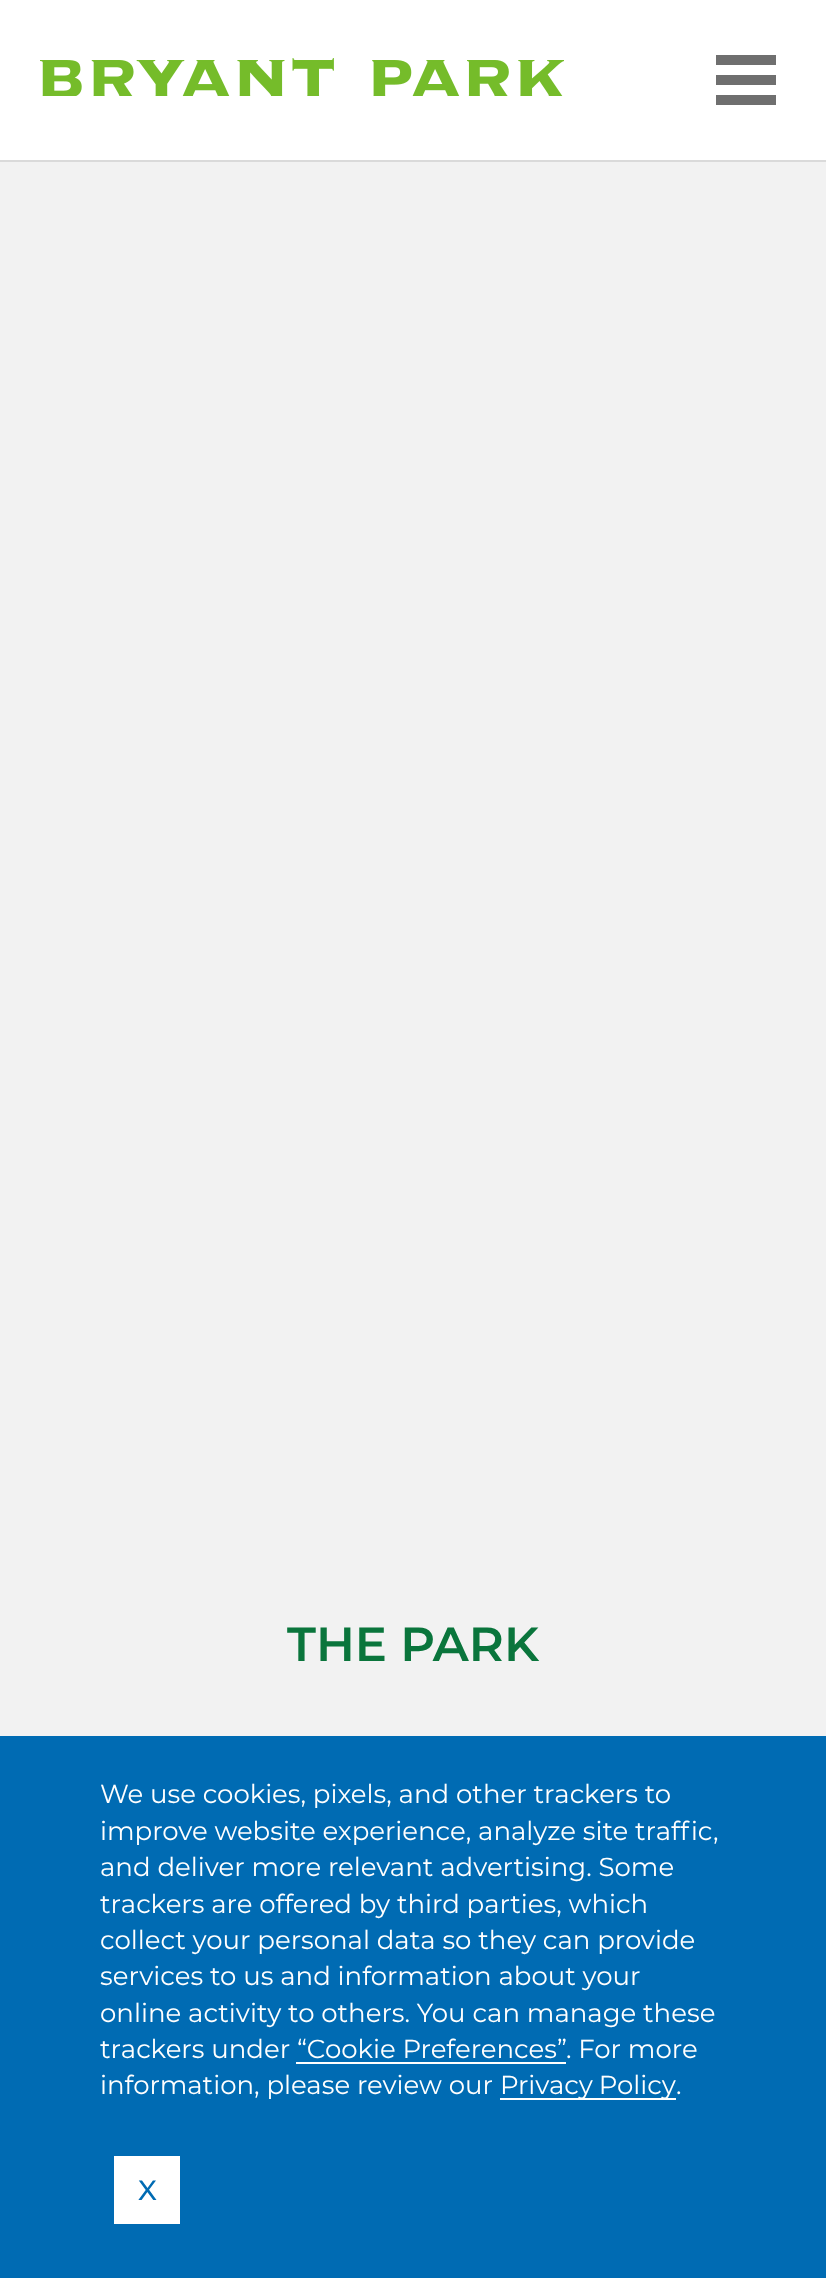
async function draw(canvas) {
  canvas.width = 826
  canvas.height = 2278
  const ctx = canvas.getContext('2d')
  ctx.miterLimit = 4
  ctx.fontKerning = 'normal'
  async function loadImage(src) {
    const img = new Image()
    img.src = src
    await img.decode()
    return img
  }

  ctx.fillStyle = '#f2f2f2'
  ctx.fillRect(0, 0, 826, 2278)
  ctx.fillStyle = '#fff'
  ctx.fillRect(0, 0, 826, 160)
  ctx.fillStyle = '#dadada'
  ctx.fillRect(0, 160, 826, 2)
  ctx.drawImage(await loadImage('image0.png'), 40, 58, 524, 38)
  ctx.fillStyle = '#6f6f6f'
  ctx.fillRect(716, 55, 60, 10)
  ctx.fillRect(716, 75, 60, 10)
  ctx.fillRect(716, 95, 60, 10)
  ctx.font = '600 48px Montserrat'
  ctx.fillStyle = '#0a753c'
  ctx.fillText('THE PARK', 287, 1661)
  ctx.fillStyle = '#006bb3'
  ctx.fillRect(0, 1736, 826, 542)
  ctx.font = '26px Montserrat'
  ctx.fillStyle = '#fff'
  ctx.fillText('We use cookies, pixels, and other trackers to', 100, 1803)
  ctx.fillText('improve website experience, analyze site traffic,', 100, 1840)
  ctx.fillText('and deliver more relevant advertising. Some', 100, 1876)
  ctx.fillText('trackers are offered by third parties, which', 100, 1913)
  ctx.fillText('collect your personal data so they can provide', 100, 1949)
  ctx.fillText('services to us and information about your', 100, 1985)
  ctx.fillText('online activity to others. You can manage these', 100, 2022)
  ctx.fillText('trackers under “Cookie Preferences”', 100, 2058)
  ctx.fillText('. For more', 566, 2058)
  ctx.fillRect(296, 2062, 270, 2)
  ctx.fillText('information, please review our', 100, 2094)
  ctx.fillRect(500, 2098, 176, 2)
  ctx.wordSpacing = '-1px'
  ctx.fillText('Privacy Policy', 500, 2094)
  ctx.wordSpacing = '0px'
  ctx.fillText('.', 676, 2094)
  ctx.fillRect(114, 2156, 66, 68)
  ctx.font = '500 28px Montserrat'
  ctx.fillStyle = '#006bb3'
  ctx.fillText('X', 138, 2200)
}

draw(document.querySelector('canvas'))
